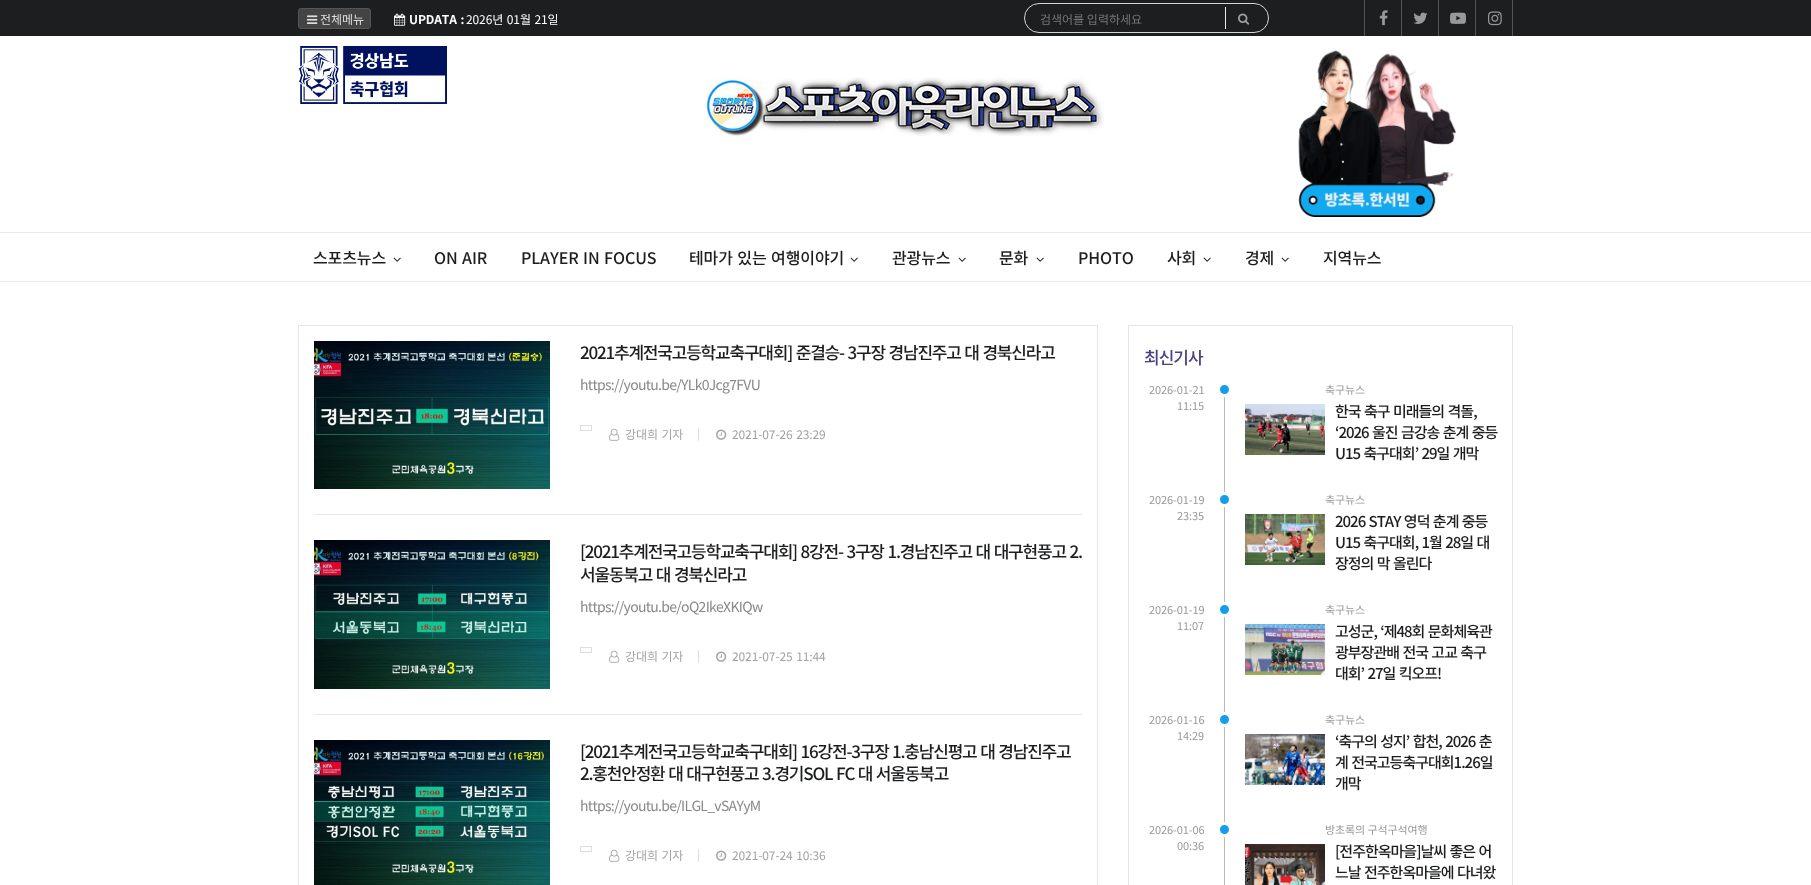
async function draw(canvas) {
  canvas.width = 1811
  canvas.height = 885
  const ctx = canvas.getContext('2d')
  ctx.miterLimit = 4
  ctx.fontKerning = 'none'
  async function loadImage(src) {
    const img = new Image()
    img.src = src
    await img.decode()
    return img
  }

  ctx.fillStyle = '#fff'
  ctx.fillRect(0, 0, 1811, 885)
  ctx.fillStyle = '#1d1e20'
  ctx.fillRect(0, 0, 1811, 36)
  ctx.fillStyle = '#444'
  ctx.beginPath()
  ctx.roundRect(298.5, 8.5, 72, 20, 2.5)
  ctx.fill()
  ctx.strokeStyle = '#555'
  ctx.stroke()
  ctx.drawImage(await loadImage('image0.png'), 307, 15, 11, 9)
  ctx.font = '12px Noto Sans KR'
  ctx.fillStyle = '#ddd'
  ctx.fillText('전체메뉴', 320, 24)
  ctx.drawImage(await loadImage('image1.png'), 394, 13, 12, 13)
  ctx.letterSpacing = '-0.1px'
  ctx.wordSpacing = '1px'
  ctx.font = 'bold 12px Noto Sans KR'
  ctx.fillStyle = '#fff'
  ctx.fillText('UPDATA :', 409, 24)
  ctx.font = '12px Noto Sans KR'
  ctx.fillText('2026년 01월 21일', 466, 24)
  ctx.beginPath()
  ctx.roundRect(1024.5, 3.5, 244, 29, 14.5)
  ctx.strokeStyle = '#d3d8d9'
  ctx.stroke()
  ctx.letterSpacing = '0px'
  ctx.wordSpacing = '0px'
  ctx.fillStyle = '#757575'
  ctx.fillText('검색어를 입력하세요', 1040, 24)
  ctx.fillStyle = '#ebebeb'
  ctx.fillRect(1225, 7, 1, 22)
  ctx.drawImage(await loadImage('image2.png'), 1238, 13, 12, 12)
  ctx.fillStyle = '#555'
  ctx.fillRect(1512, 0, 1, 36)
  ctx.fillRect(1364, 0, 1, 36)
  ctx.drawImage(await loadImage('image3.png'), 1379, 10, 9, 16)
  ctx.fillRect(1401, 0, 1, 36)
  ctx.drawImage(await loadImage('image4.png'), 1413, 12, 15, 12)
  ctx.fillRect(1438, 0, 1, 36)
  ctx.drawImage(await loadImage('image5.png'), 1450, 12, 16, 12)
  ctx.fillRect(1475, 0, 1, 36)
  ctx.drawImage(await loadImage('image6.png'), 1488, 11, 14, 15)
  ctx.drawImage(await loadImage('image7.png'), 299, 46, 148, 58)
  ctx.drawImage(await loadImage('image8.png'), 706, 77, 398, 59)
  ctx.drawImage(await loadImage('image9.png'), 1298, 50, 158, 167)
  ctx.fillStyle = '#ebebeb'
  ctx.fillRect(0, 232, 1811, 1)
  ctx.fillRect(0, 281, 1811, 1)
  ctx.letterSpacing = '-0.1px'
  ctx.font = '500 16px Noto Sans KR'
  ctx.fillStyle = '#1d1e20'
  ctx.fillText('스포츠뉴스', 313, 264)
  ctx.drawImage(await loadImage('image10.png'), 393, 257, 8, 5)
  ctx.wordSpacing = '1px'
  ctx.fillText('ON AIR', 434, 264)
  ctx.fillText('PLAYER IN FOCUS', 521, 264)
  ctx.fillText('테마가 있는 여행이야기', 689, 264)
  ctx.drawImage(await loadImage('image10.png'), 850, 257, 8, 5)
  ctx.wordSpacing = '0px'
  ctx.fillText('관광뉴스', 892, 264)
  ctx.drawImage(await loadImage('image10.png'), 958, 257, 8, 5)
  ctx.fillText('문화', 999, 264)
  ctx.drawImage(await loadImage('image10.png'), 1036, 257, 8, 5)
  ctx.fillText('PHOTO', 1078, 264)
  ctx.fillText('사회', 1167, 264)
  ctx.drawImage(await loadImage('image10.png'), 1203, 257, 8, 5)
  ctx.fillText('경제', 1245, 264)
  ctx.drawImage(await loadImage('image10.png'), 1281, 257, 8, 5)
  ctx.fillText('지역뉴스', 1323, 264)
  ctx.strokeStyle = '#e6e6e6'
  ctx.strokeRect(298.5, 325.5, 799, 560)
  ctx.drawImage(await loadImage('image11.png'), 314, 341, 236, 148)
  ctx.letterSpacing = '-1.2px'
  ctx.wordSpacing = '1px'
  ctx.font = '500 17px Noto Sans KR'
  ctx.fillText('2021추계전국고등학교축구대회] 준결승- 3구장 경남진주고 대 경북신라고', 580, 359)
  ctx.letterSpacing = '-0.7px'
  ctx.wordSpacing = '0px'
  ctx.font = '14px Noto Sans KR'
  ctx.fillStyle = '#888'
  ctx.fillText('https://youtu.be/YLk0Jcg7FVU', 580, 390)
  ctx.strokeStyle = '#dedede'
  ctx.strokeRect(580.5, 425.5, 11, 5)
  ctx.fillStyle = '#dedede'
  ctx.fillRect(698, 428, 1, 13)
  ctx.drawImage(await loadImage('image12.png'), 609, 428, 11, 13)
  ctx.letterSpacing = '-0.1px'
  ctx.wordSpacing = '1px'
  ctx.font = '12px Noto Sans KR'
  ctx.fillStyle = '#a3a3a3'
  ctx.fillText('강대희 기자', 625, 439)
  ctx.drawImage(await loadImage('image13.png'), 716, 429, 11, 11)
  ctx.fillText('2021-07-26 23:29', 732, 439)
  ctx.fillStyle = '#e8e8e8'
  ctx.fillRect(314, 514, 768, 1)
  ctx.drawImage(await loadImage('image14.png'), 314, 540, 236, 149)
  ctx.letterSpacing = '-1.2px'
  ctx.font = '500 17px Noto Sans KR'
  ctx.fillStyle = '#1d1e20'
  ctx.fillText('[2021추계전국고등학교축구대회] 8강전- 3구장 1.경남진주고 대 대구현풍고 2.', 580, 558)
  ctx.fillText('서울동북고 대 경북신라고', 580, 581)
  ctx.letterSpacing = '-0.7px'
  ctx.wordSpacing = '0px'
  ctx.font = '14px Noto Sans KR'
  ctx.fillStyle = '#888'
  ctx.fillText('https://youtu.be/oQ2IkeXKIQw', 580, 612)
  ctx.strokeRect(580.5, 647.5, 11, 5)
  ctx.fillStyle = '#dedede'
  ctx.fillRect(698, 650, 1, 13)
  ctx.drawImage(await loadImage('image12.png'), 609, 650, 11, 13)
  ctx.letterSpacing = '-0.1px'
  ctx.wordSpacing = '1px'
  ctx.font = '12px Noto Sans KR'
  ctx.fillStyle = '#a3a3a3'
  ctx.fillText('강대희 기자', 625, 661)
  ctx.drawImage(await loadImage('image13.png'), 716, 651, 11, 11)
  ctx.fillText('2021-07-25 11:44', 732, 661)
  ctx.fillStyle = '#e8e8e8'
  ctx.fillRect(314, 714, 768, 1)
  ctx.drawImage(await loadImage('image15.png'), 314, 740, 236, 145)
  ctx.letterSpacing = '-1.2px'
  ctx.font = '500 17px Noto Sans KR'
  ctx.fillStyle = '#1d1e20'
  ctx.fillText('[2021추계전국고등학교축구대회] 16강전-3구장', 580, 758)
  ctx.fillText('1.충남신평고 대 경남진주고', 892, 758)
  ctx.fillText('2.홍천안정환 대 대구현풍고 3.경기SOL FC 대 서울동북고', 580, 780)
  ctx.letterSpacing = '-0.7px'
  ctx.wordSpacing = '0px'
  ctx.font = '14px Noto Sans KR'
  ctx.fillStyle = '#888'
  ctx.fillText('https://youtu.be/ILGL_vSAYyM', 580, 811)
  ctx.strokeRect(580.5, 846.5, 11, 5)
  ctx.fillStyle = '#dedede'
  ctx.fillRect(698, 849, 1, 13)
  ctx.drawImage(await loadImage('image12.png'), 609, 849, 11, 13)
  ctx.letterSpacing = '-0.1px'
  ctx.wordSpacing = '1px'
  ctx.font = '12px Noto Sans KR'
  ctx.fillStyle = '#a3a3a3'
  ctx.fillText('강대희 기자', 625, 860)
  ctx.drawImage(await loadImage('image13.png'), 716, 850, 11, 11)
  ctx.fillText('2021-07-24 10:36', 732, 860)
  ctx.strokeStyle = '#e6e6e6'
  ctx.strokeRect(1128.5, 325.5, 384, 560)
  ctx.letterSpacing = '-1px'
  ctx.wordSpacing = '0px'
  ctx.font = '500 17px Noto Sans KR'
  ctx.fillStyle = '#4c4084'
  ctx.fillText('최신기사', 1144, 364)
  ctx.letterSpacing = '-0.1px'
  ctx.font = '11px Noto Sans KR'
  ctx.fillStyle = '#999'
  ctx.fillText('2026-01-21', 1149, 394)
  ctx.fillText('11:15', 1177, 410)
  ctx.fillStyle = '#bbb'
  ctx.fillRect(1224, 382, 1, 503)
  ctx.fillStyle = '#129ded'
  ctx.beginPath()
  ctx.arc(1224.5, 389.5, 6, 0, 2 * Math.PI)
  ctx.fill()
  ctx.strokeStyle = '#fff'
  ctx.lineWidth = 3
  ctx.stroke()
  ctx.fillStyle = '#999'
  ctx.fillText('축구뉴스', 1325, 394)
  ctx.drawImage(await loadImage('image16.png'), 1245, 404, 80, 51)
  ctx.letterSpacing = '-1px'
  ctx.wordSpacing = '1px'
  ctx.font = '500 15px Noto Sans KR'
  ctx.fillStyle = '#1d1e20'
  ctx.fillText('한국 축구 미래들의 격돌,', 1335, 417)
  ctx.fillText('‘2026 울진 금강송 춘계 중등', 1335, 438)
  ctx.fillText('U15 축구대회’ 29일 개막', 1335, 459)
  ctx.letterSpacing = '-0.1px'
  ctx.wordSpacing = '0px'
  ctx.font = '11px Noto Sans KR'
  ctx.fillStyle = '#999'
  ctx.fillText('2026-01-19', 1149, 504)
  ctx.fillText('23:35', 1177, 520)
  ctx.fillStyle = '#129ded'
  ctx.beginPath()
  ctx.arc(1224.5, 499.5, 6, 0, 2 * Math.PI)
  ctx.fill()
  ctx.stroke()
  ctx.fillStyle = '#999'
  ctx.fillText('축구뉴스', 1325, 504)
  ctx.drawImage(await loadImage('image17.png'), 1245, 514, 80, 51)
  ctx.letterSpacing = '-1px'
  ctx.wordSpacing = '1px'
  ctx.font = '500 15px Noto Sans KR'
  ctx.fillStyle = '#1d1e20'
  ctx.fillText('2026 STAY 영덕 춘계 중등', 1335, 527)
  ctx.fillText('U15 축구대회, 1월 28일 대', 1335, 548)
  ctx.fillText('장정의 막 올린다', 1335, 569)
  ctx.letterSpacing = '-0.1px'
  ctx.wordSpacing = '0px'
  ctx.font = '11px Noto Sans KR'
  ctx.fillStyle = '#999'
  ctx.fillText('2026-01-19', 1149, 614)
  ctx.fillText('11:07', 1177, 630)
  ctx.fillStyle = '#129ded'
  ctx.beginPath()
  ctx.arc(1224.5, 609.5, 6, 0, 2 * Math.PI)
  ctx.fill()
  ctx.stroke()
  ctx.fillStyle = '#999'
  ctx.fillText('축구뉴스', 1325, 614)
  ctx.drawImage(await loadImage('image18.png'), 1245, 624, 80, 51)
  ctx.letterSpacing = '-1px'
  ctx.wordSpacing = '1px'
  ctx.font = '500 15px Noto Sans KR'
  ctx.fillStyle = '#1d1e20'
  ctx.fillText('고성군, ‘제48회 문화체육관', 1335, 637)
  ctx.fillText('광부장관배 전국 고교 축구', 1335, 658)
  ctx.fillText('대회’ 27일 킥오프!', 1335, 679)
  ctx.letterSpacing = '-0.1px'
  ctx.wordSpacing = '0px'
  ctx.font = '11px Noto Sans KR'
  ctx.fillStyle = '#999'
  ctx.fillText('2026-01-16', 1149, 724)
  ctx.fillText('14:29', 1177, 740)
  ctx.fillStyle = '#129ded'
  ctx.beginPath()
  ctx.arc(1224.5, 719.5, 6, 0, 2 * Math.PI)
  ctx.fill()
  ctx.stroke()
  ctx.fillStyle = '#999'
  ctx.fillText('축구뉴스', 1325, 724)
  ctx.drawImage(await loadImage('image19.png'), 1245, 734, 80, 51)
  ctx.letterSpacing = '-1px'
  ctx.wordSpacing = '1px'
  ctx.font = '500 15px Noto Sans KR'
  ctx.fillStyle = '#1d1e20'
  ctx.fillText('‘축구의 성지’ 합천, 2026 춘', 1335, 747)
  ctx.fillText('계 전국고등축구대회1.26일', 1335, 768)
  ctx.wordSpacing = '0px'
  ctx.fillText('개막', 1335, 789)
  ctx.letterSpacing = '-0.1px'
  ctx.font = '11px Noto Sans KR'
  ctx.fillStyle = '#999'
  ctx.fillText('2026-01-06', 1149, 834)
  ctx.fillText('00:36', 1177, 850)
  ctx.fillStyle = '#129ded'
  ctx.beginPath()
  ctx.arc(1224.5, 829.5, 6, 0, 2 * Math.PI)
  ctx.fill()
  ctx.stroke()
  ctx.fillStyle = '#999'
  ctx.fillText('방초록의 구석구석여행', 1325, 834)
  ctx.drawImage(await loadImage('image20.png'), 1245, 844, 80, 41)
  ctx.letterSpacing = '-1px'
  ctx.wordSpacing = '1px'
  ctx.font = '500 15px Noto Sans KR'
  ctx.fillStyle = '#1d1e20'
  ctx.fillText('[전주한옥마을]날씨 좋은 어', 1335, 857)
  ctx.fillText('느날 전주한옥마을에 다녀왔', 1335, 878)
}

draw(document.querySelector('canvas'))
